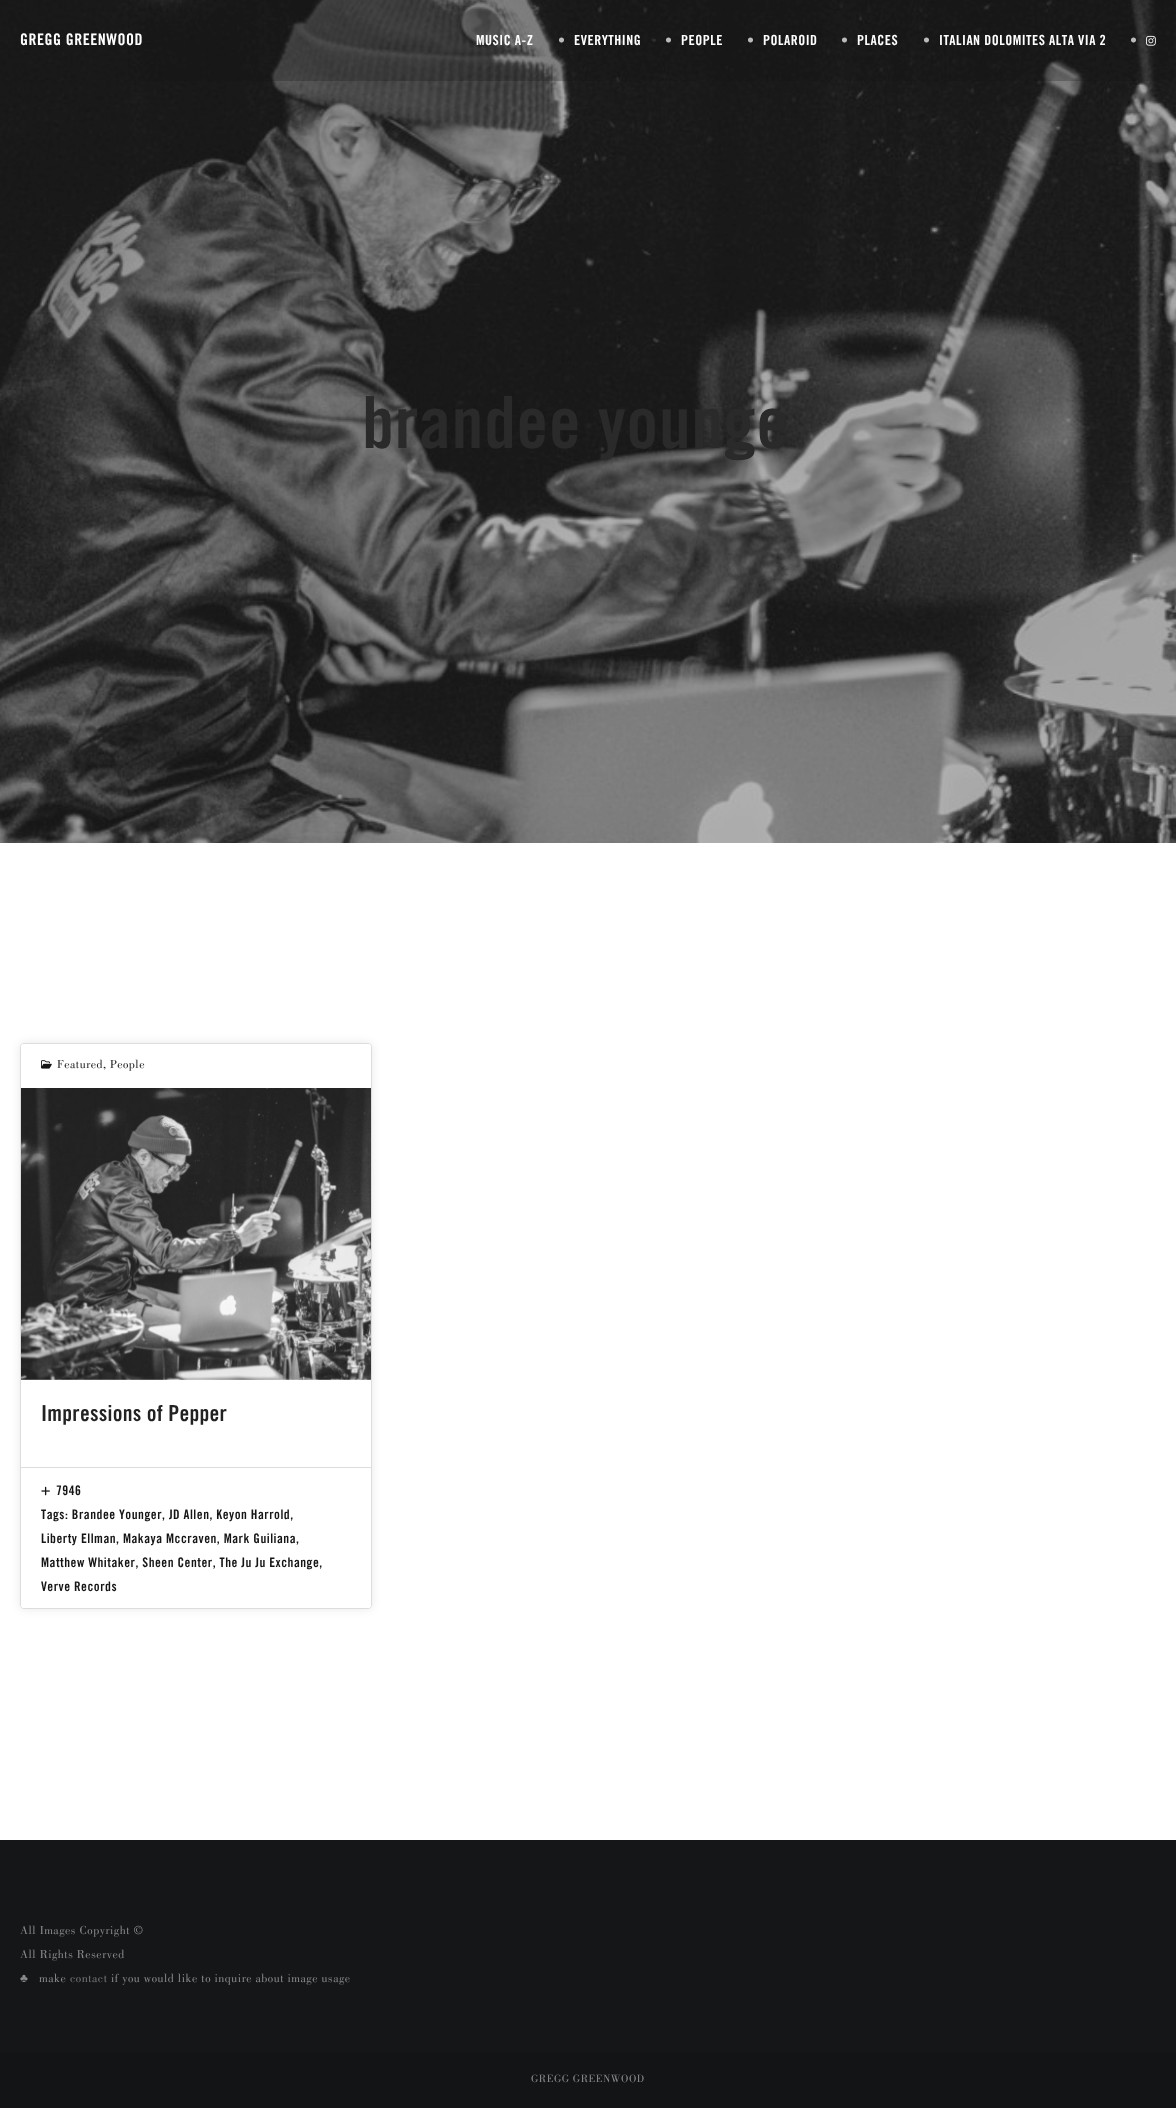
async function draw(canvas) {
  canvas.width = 1176
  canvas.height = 2108
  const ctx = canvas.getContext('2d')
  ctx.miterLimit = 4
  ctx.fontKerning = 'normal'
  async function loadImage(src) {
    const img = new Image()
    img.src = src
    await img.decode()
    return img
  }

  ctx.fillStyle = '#fff'
  ctx.fillRect(0, 0, 1176, 2108)
  ctx.drawImage(await loadImage('image1.png'), 0, 0, 1176, 843)
  ctx.fillStyle = '#13141640'
  ctx.fillRect(128, 0, 1046, 81)
  ctx.letterSpacing = '0.5px'
  ctx.font = 'bold 16px "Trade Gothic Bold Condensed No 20"'
  ctx.fillStyle = '#fff'
  ctx.fillText('GREGG GREENWOOD', 20, 45)
  ctx.font = 'bold 14px "Trade Gothic Bold Condensed No 20"'
  ctx.fillText('MUSIC A-Z', 476, 45)
  ctx.fillStyle = '#bbb'
  ctx.fillText('•', 558, 45)
  ctx.fillStyle = '#fff'
  ctx.fillText('EVERYTHING', 574, 45)
  ctx.fillStyle = '#bbb'
  ctx.fillText('•', 665, 45)
  ctx.fillStyle = '#fff'
  ctx.fillText('PEOPLE', 681, 45)
  ctx.fillStyle = '#bbb'
  ctx.fillText('•', 747, 45)
  ctx.fillStyle = '#fff'
  ctx.fillText('POLAROID', 763, 45)
  ctx.fillStyle = '#bbb'
  ctx.fillText('•', 841, 45)
  ctx.fillStyle = '#fff'
  ctx.fillText('PLACES', 857, 45)
  ctx.fillStyle = '#bbb'
  ctx.fillText('•', 923, 45)
  ctx.fillStyle = '#fff'
  ctx.fillText('ITALIAN DOLOMITES ALTA VIA 2', 939, 45)
  ctx.fillStyle = '#bbb'
  ctx.fillText('•', 1130, 45)
  ctx.drawImage(await loadImage('image0.png'), 1146, 35, 10, 11)
  ctx.font = 'bold 72px "Trade Gothic Bold Condensed No 20"'
  ctx.fillStyle = '#2a2a2a'
  ctx.fillText('brandee younge', 362, 448)
  ctx.fillStyle = '#00000017'
  ctx.filter = 'blur(5px)'
  ctx.beginPath()
  ctx.roundRect(20, 1043, 352, 566, 4)
  ctx.fill()
  ctx.filter = 'none'
  ctx.fillStyle = '#fff'
  ctx.beginPath()
  ctx.roundRect(20.5, 1043.5, 351, 565, 3.5)
  ctx.fill()
  ctx.strokeStyle = '#ddd'
  ctx.stroke()
  ctx.beginPath()
  ctx.roundRect(21, 1044, 350, 44, [3, 3, 0, 0])
  ctx.fill()
  ctx.drawImage(await loadImage('image2.png'), 41, 1060, 11, 9)
  ctx.font = '12px Bodoni'
  ctx.fillStyle = '#151515'
  ctx.fillText('Featured, People', 57, 1068)
  ctx.drawImage(await loadImage('image3.png'), 21, 1088, 350, 292)
  ctx.letterSpacing = '0.25px'
  ctx.font = 'bold 22px "Trade Gothic Bold Condensed No 20"'
  ctx.fillStyle = '#222'
  ctx.fillText('Impressions of Pepper', 41, 1421)
  ctx.fillStyle = '#fff'
  ctx.beginPath()
  ctx.roundRect(21, 1467, 350, 141, [0, 0, 3, 3])
  ctx.fill()
  ctx.fillStyle = '#ddd'
  ctx.fillRect(21, 1467, 350, 1)
  ctx.drawImage(await loadImage('image4.png'), 41, 1486, 9, 10)
  ctx.letterSpacing = '0.5px'
  ctx.font = 'bold 13.2px "Trade Gothic Bold Condensed No 20"'
  ctx.fillStyle = '#151515'
  ctx.fillText('7946', 56, 1495)
  ctx.fillText('Tags: Brandee Younger, JD Allen, Keyon Harrold,', 41, 1519)
  ctx.fillText('Liberty Ellman, Makaya Mccraven, Mark Guiliana,', 41, 1543)
  ctx.fillText('Matthew Whitaker, Sheen Center, The Ju Ju Exchange,', 41, 1567)
  ctx.fillText('Verve Records', 41, 1591)
  ctx.fillStyle = '#141618'
  ctx.fillRect(0, 1840, 1176, 212)
  ctx.font = '12px Bodoni'
  ctx.fillStyle = '#8a8b8c'
  ctx.fillText('All Images Copyright ©', 20, 1934)
  ctx.fillText('All Rights Reserved', 20, 1958)
  ctx.font = '12px Liberation Serif'
  ctx.fillText('♣', 20, 1982)
  ctx.font = '12px Bodoni'
  ctx.fillText('make', 39, 1982)
  ctx.fillStyle = '#777'
  ctx.fillText('contact', 70, 1982)
  ctx.fillStyle = '#8a8b8c'
  ctx.fillText('if you would like to inquire about image usage', 111, 1982)
  ctx.fillStyle = '#131416'
  ctx.fillRect(0, 2052, 1176, 56)
  ctx.font = '11px Bodoni'
  ctx.fillStyle = '#8a8b8c'
  ctx.fillText('GREGG GREENWOOD', 531, 2082)
}

draw(document.querySelector('canvas'))
